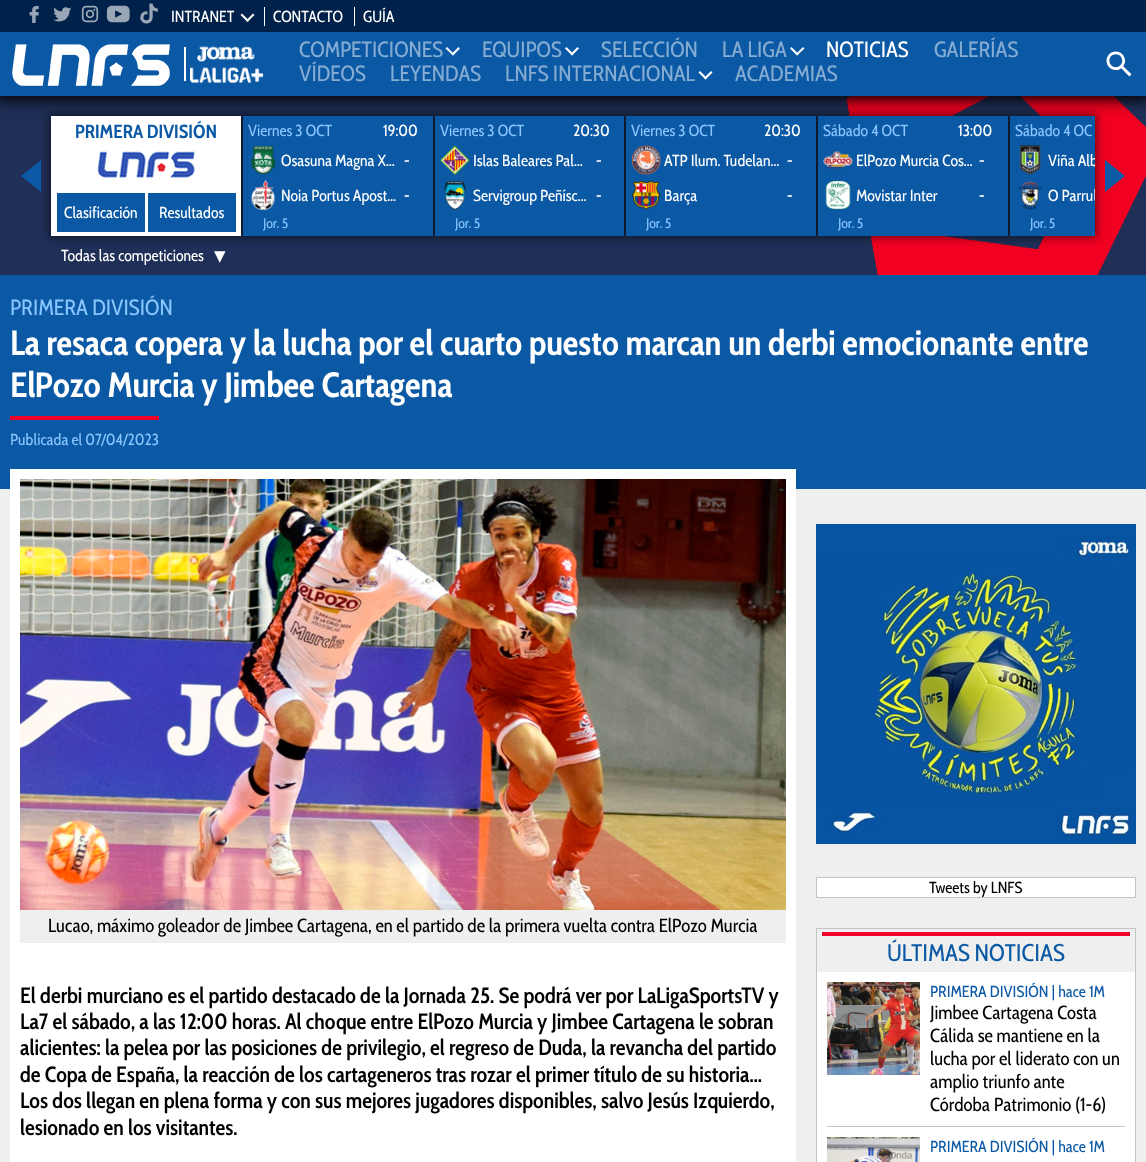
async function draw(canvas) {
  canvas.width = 1146
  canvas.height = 1162
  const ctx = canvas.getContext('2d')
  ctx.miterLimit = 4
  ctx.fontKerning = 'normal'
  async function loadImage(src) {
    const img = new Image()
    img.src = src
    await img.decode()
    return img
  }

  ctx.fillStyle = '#efefef'
  ctx.fillRect(0, 0, 1146, 1162)
  ctx.drawImage(await loadImage('image9.png'), 0, 96, 1146, 179)
  ctx.fillStyle = '#00000080'
  ctx.filter = 'blur(4px)'
  ctx.beginPath()
  ctx.rect(49, 114, 1048, 124)
  ctx.fill()
  ctx.filter = 'none'
  ctx.fillStyle = '#fff'
  ctx.fillRect(51, 116, 190, 120)
  ctx.fillStyle = '#0b59a5'
  ctx.fillRect(243, 116, 190, 120)
  ctx.fillRect(435, 116, 189, 120)
  ctx.fillRect(626, 116, 190, 120)
  ctx.fillRect(818, 116, 190, 120)
  ctx.fillRect(1010, 116, 85, 120)
  ctx.fillStyle = '#000000b3'
  ctx.filter = 'blur(7.5px)'
  ctx.beginPath()
  ctx.rect(-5, -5, 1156, 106)
  ctx.fill()
  ctx.filter = 'none'
  ctx.fillStyle = '#00000080'
  ctx.filter = 'blur(4px)'
  ctx.beginPath()
  ctx.rect(-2, 30, 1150, 68)
  ctx.fill()
  ctx.filter = 'none'
  ctx.fillStyle = '#00214a'
  ctx.fillRect(0, 0, 1146, 32)
  ctx.drawImage(await loadImage('image0.png'), 29, 6, 10, 17)
  ctx.drawImage(await loadImage('image1.png'), 53, 7, 19, 15)
  ctx.drawImage(await loadImage('image2.png'), 81, 5, 18, 18)
  ctx.drawImage(await loadImage('image3.png'), 106, 5, 24, 18)
  ctx.drawImage(await loadImage('image4.png'), 140, 3, 18, 21)
  ctx.font = '16px Cabin Condensed'
  ctx.fillStyle = '#fff'
  ctx.fillText('INTRANET', 171, 22)
  ctx.beginPath()
  ctx.moveTo(253, 13.5)
  ctx.lineTo(254.5, 15)
  ctx.lineTo(247.5, 22)
  ctx.lineTo(246, 20.5)
  ctx.closePath()
  ctx.fill()
  ctx.beginPath()
  ctx.moveTo(242, 13.5)
  ctx.lineTo(249, 20.5)
  ctx.lineTo(247.5, 22)
  ctx.lineTo(240.5, 15)
  ctx.closePath()
  ctx.fill()
  ctx.fillRect(264, 7, 1, 19)
  ctx.fillText('CONTACTO', 273, 22)
  ctx.fillRect(354, 7, 1, 19)
  ctx.fillText('GUÍA', 363, 22)
  ctx.fillStyle = '#0b59a5'
  ctx.fillRect(0, 32, 1146, 64)
  ctx.drawImage(await loadImage('image5.png'), 12, 44, 158, 42)
  ctx.fillStyle = '#fff'
  ctx.fillRect(184, 47, 2, 34)
  ctx.drawImage(await loadImage('image6.png'), 197, 46, 58, 16)
  ctx.drawImage(await loadImage('image7.png'), 190, 67, 74, 16)
  ctx.font = '22px Cabin Condensed'
  ctx.fillStyle = '#85acd2'
  ctx.fillText('COMPETICIONES', 299, 57)
  ctx.fillStyle = '#fff'
  ctx.beginPath()
  ctx.moveTo(458.5, 47)
  ctx.lineTo(460, 48.5)
  ctx.lineTo(453, 55.5)
  ctx.lineTo(451.5, 54)
  ctx.closePath()
  ctx.fill()
  ctx.beginPath()
  ctx.moveTo(447, 47)
  ctx.lineTo(454, 54)
  ctx.lineTo(453, 55.5)
  ctx.lineTo(445.5, 48.5)
  ctx.closePath()
  ctx.fill()
  ctx.fillStyle = '#85acd2'
  ctx.fillText('EQUIPOS', 482, 57)
  ctx.fillStyle = '#fff'
  ctx.beginPath()
  ctx.moveTo(577.5, 47)
  ctx.lineTo(579, 48.5)
  ctx.lineTo(572, 55.5)
  ctx.lineTo(570.5, 54)
  ctx.closePath()
  ctx.fill()
  ctx.beginPath()
  ctx.moveTo(566.5, 47)
  ctx.lineTo(573.5, 54)
  ctx.lineTo(572, 55.5)
  ctx.lineTo(565, 48.5)
  ctx.closePath()
  ctx.fill()
  ctx.fillStyle = '#85acd2'
  ctx.fillText('SELECCIÓN', 601, 57)
  ctx.fillText('LA LIGA', 722, 57)
  ctx.fillStyle = '#fff'
  ctx.beginPath()
  ctx.moveTo(803, 47)
  ctx.lineTo(804.5, 48.5)
  ctx.lineTo(797, 55.5)
  ctx.lineTo(796, 54)
  ctx.closePath()
  ctx.fill()
  ctx.beginPath()
  ctx.moveTo(791.5, 47)
  ctx.lineTo(798.5, 54)
  ctx.lineTo(797, 55.5)
  ctx.lineTo(790, 48.5)
  ctx.closePath()
  ctx.fill()
  ctx.fillText('NOTICIAS', 826, 57)
  ctx.fillStyle = '#85acd2'
  ctx.fillText('GALERÍAS', 934, 57)
  ctx.fillText('VÍDEOS', 299, 81)
  ctx.fillText('LEYENDAS', 390, 81)
  ctx.fillText('LNFS INTERNACIONAL', 505, 81)
  ctx.fillStyle = '#fff'
  ctx.beginPath()
  ctx.moveTo(711, 71)
  ctx.lineTo(712.5, 72.5)
  ctx.lineTo(705.5, 79.5)
  ctx.lineTo(704, 78)
  ctx.closePath()
  ctx.fill()
  ctx.beginPath()
  ctx.moveTo(700, 71)
  ctx.lineTo(707, 78)
  ctx.lineTo(705.5, 79.5)
  ctx.lineTo(698.5, 72.5)
  ctx.closePath()
  ctx.fill()
  ctx.fillStyle = '#85acd2'
  ctx.fillText('ACADEMIAS', 735, 81)
  ctx.drawImage(await loadImage('image8.png'), 1106, 51, 26, 26)
  ctx.fillStyle = '#0b59a5'
  ctx.beginPath()
  ctx.moveTo(41, 160)
  ctx.lineTo(41, 192)
  ctx.lineTo(21, 176)
  ctx.closePath()
  ctx.fill()
  ctx.font = 'bold 19px Cabin Condensed'
  ctx.fillText('PRIMERA DIVISIÓN', 75, 138)
  ctx.drawImage(await loadImage('image10.png'), 97, 151, 98, 27)
  ctx.fillRect(57, 193, 88, 39)
  ctx.font = '16px Cabin Condensed'
  ctx.fillStyle = '#fff'
  ctx.fillText('Clasificación', 64, 218)
  ctx.fillStyle = '#0b59a5'
  ctx.fillRect(148, 193, 88, 39)
  ctx.fillStyle = '#fff'
  ctx.fillText('Resultados', 159, 218)
  ctx.fillStyle = '#89c5ff'
  ctx.fillText('Viernes 3 OCT', 248, 136)
  ctx.fillStyle = '#fff'
  ctx.fillText('19:00', 383, 136)
  ctx.drawImage(await loadImage('image11.png'), 250, 146, 26, 29)
  ctx.fillText('Osasuna Magna X…', 281, 166)
  ctx.font = 'bold 16px Cabin Condensed'
  ctx.fillText('-', 404, 166)
  ctx.drawImage(await loadImage('image12.png'), 251, 180, 25, 30)
  ctx.font = '16px Cabin Condensed'
  ctx.fillText('Noia Portus Apost…', 281, 201)
  ctx.font = 'bold 16px Cabin Condensed'
  ctx.fillText('-', 404, 201)
  ctx.font = '14px Cabin Condensed'
  ctx.fillStyle = '#89c5ff'
  ctx.fillText('Jor. 5', 263, 228)
  ctx.font = '16px Cabin Condensed'
  ctx.fillText('Viernes 3 OCT', 440, 136)
  ctx.fillStyle = '#fff'
  ctx.fillText('20:30', 573, 136)
  ctx.drawImage(await loadImage('image13.png'), 440, 145, 30, 30)
  ctx.fillText('Islas Baleares Pal…', 473, 166)
  ctx.font = 'bold 16px Cabin Condensed'
  ctx.fillText('-', 596, 166)
  ctx.drawImage(await loadImage('image14.png'), 444, 180, 23, 30)
  ctx.font = '16px Cabin Condensed'
  ctx.fillText('Servigroup Peñísc…', 473, 201)
  ctx.font = 'bold 16px Cabin Condensed'
  ctx.fillText('-', 596, 201)
  ctx.font = '14px Cabin Condensed'
  ctx.fillStyle = '#89c5ff'
  ctx.fillText('Jor. 5', 455, 228)
  ctx.font = '16px Cabin Condensed'
  ctx.fillText('Viernes 3 OCT', 631, 136)
  ctx.fillStyle = '#fff'
  ctx.fillText('20:30', 764, 136)
  ctx.drawImage(await loadImage('image15.png'), 631, 145, 30, 30)
  ctx.fillText('ATP Ilum. Tudelan…', 664, 166)
  ctx.font = 'bold 16px Cabin Condensed'
  ctx.fillText('-', 787, 166)
  ctx.drawImage(await loadImage('image16.png'), 631, 180, 30, 30)
  ctx.font = '16px Cabin Condensed'
  ctx.fillText('Barça', 664, 201)
  ctx.font = 'bold 16px Cabin Condensed'
  ctx.fillText('-', 787, 201)
  ctx.font = '14px Cabin Condensed'
  ctx.fillStyle = '#89c5ff'
  ctx.fillText('Jor. 5', 646, 228)
  ctx.font = '16px Cabin Condensed'
  ctx.fillText('Sábado 4 OCT', 823, 136)
  ctx.fillStyle = '#fff'
  ctx.fillText('13:00', 958, 136)
  ctx.drawImage(await loadImage('image17.png'), 823, 150, 30, 19)
  ctx.fillText('ElPozo Murcia Cos…', 856, 166)
  ctx.font = 'bold 16px Cabin Condensed'
  ctx.fillText('-', 979, 166)
  ctx.drawImage(await loadImage('image18.png'), 825, 180, 26, 30)
  ctx.font = '16px Cabin Condensed'
  ctx.fillText('Movistar Inter', 856, 201)
  ctx.font = 'bold 16px Cabin Condensed'
  ctx.fillText('-', 979, 201)
  ctx.font = '14px Cabin Condensed'
  ctx.fillStyle = '#89c5ff'
  ctx.fillText('Jor. 5', 838, 228)
  ctx.font = '16px Cabin Condensed'
  ctx.fillText('Sábado 4 OC', 1015, 136)
  ctx.drawImage(await loadImage('image19.png'), 1019, 145, 22, 30)
  ctx.save()
  ctx.beginPath()
  ctx.rect(1048, 151, 47, 19)
  ctx.clip()
  ctx.fillStyle = '#fff'
  ctx.fillText('Viña Alb', 1048, 166)
  ctx.restore()
  ctx.drawImage(await loadImage('image20.png'), 1018, 180, 24, 30)
  ctx.save()
  ctx.beginPath()
  ctx.rect(1048, 186, 47, 19)
  ctx.clip()
  ctx.fillStyle = '#fff'
  ctx.fillText('O Parrul', 1048, 201)
  ctx.restore()
  ctx.font = '14px Cabin Condensed'
  ctx.fillText('Jor. 5', 1030, 228)
  ctx.fillStyle = '#0b59a5'
  ctx.beginPath()
  ctx.moveTo(1105, 192)
  ctx.lineTo(1105, 160)
  ctx.lineTo(1125, 176)
  ctx.closePath()
  ctx.fill()
  ctx.font = '16px Cabin Condensed'
  ctx.fillStyle = '#fff'
  ctx.fillText('Todas las competiciones', 61, 261)
  ctx.font = '23px DejaVu Sans'
  ctx.fillText('▾', 214, 263)
  ctx.fillStyle = '#0b59a5'
  ctx.fillRect(0, 275, 1146, 214)
  ctx.font = '22px Cabin Condensed'
  ctx.fillStyle = '#89c5ff'
  ctx.fillText('PRIMERA DIVISIÓN', 10, 315)
  ctx.font = 'bold 35px Cabin Condensed'
  ctx.fillStyle = '#fff'
  ctx.fillText('La resaca copera y la lucha por el cuarto puesto marcan un derbi emocionante entre', 10, 355)
  ctx.fillText('ElPozo Murcia y Jimbee Cartagena', 10, 397)
  ctx.fillStyle = '#ef032b'
  ctx.fillRect(10, 416, 149, 4)
  ctx.font = '16px Cabin Condensed'
  ctx.fillStyle = '#89c5ff'
  ctx.fillText('Publicada el 07/04/2023', 10, 445)
  ctx.fillStyle = '#fff'
  ctx.fillRect(10, 469, 786, 693)
  ctx.drawImage(await loadImage('image21.png'), 20, 479, 766, 431)
  ctx.fillStyle = '#efefef'
  ctx.fillRect(20, 910, 766, 33)
  ctx.font = '19px Cabin Condensed'
  ctx.fillStyle = '#000'
  ctx.fillText('Lucao, máximo goleador de Jimbee Cartagena, en el partido de la primera vuelta contra ElPozo Murcia', 48, 932)
  ctx.font = '600 22px Cabin Condensed'
  ctx.fillText('El derbi murciano es el partido destacado de la Jornada 25. Se podrá ver por LaLigaSportsTV y', 20, 1003)
  ctx.fillText('La7 el sábado, a las 12:00 horas. Al choque entre ElPozo Murcia y Jimbee Cartagena le sobran', 20, 1029)
  ctx.fillText('alicientes: la pelea por las posiciones de privilegio, el regreso de Duda, la revancha del partido', 20, 1055)
  ctx.fillText('de Copa de España, la reacción de los cartageneros tras rozar el primer título de su historia…', 20, 1082)
  ctx.fillText('Los dos llegan en plena forma y con sus mejores jugadores disponibles, salvo Jesús Izquierdo,', 20, 1108)
  ctx.fillText('lesionado en los visitantes.', 20, 1135)
  ctx.drawImage(await loadImage('image22.png'), 816, 524, 320, 320)
  ctx.fillStyle = '#fff'
  ctx.beginPath()
  ctx.rect(816.5, 877.5, 319, 20)
  ctx.fill()
  ctx.strokeStyle = '#c3c3c3'
  ctx.stroke()
  ctx.font = '16px Cabin Condensed'
  ctx.fillStyle = '#000'
  ctx.fillText('Tweets by LNFS', 929, 893)
  ctx.fillStyle = '#fff'
  ctx.fillRect(817, 972, 318, 190)
  ctx.strokeRect(816.5, 928.5, 319, 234)
  ctx.fillStyle = '#ef032b'
  ctx.fillRect(822, 932, 308, 4)
  ctx.font = '24px Cabin Condensed'
  ctx.fillStyle = '#0b59a5'
  ctx.fillText('ÚLTIMAS NOTICIAS', 887, 961)
  ctx.drawImage(await loadImage('image23.png'), 827, 982, 93, 93)
  ctx.font = '16px Cabin Condensed'
  ctx.fillText('PRIMERA DIVISIÓN | hace 1M', 930, 997)
  ctx.font = '19px Cabin Condensed'
  ctx.fillStyle = '#000'
  ctx.fillText('Jimbee Cartagena Costa', 930, 1019)
  ctx.fillText('Cálida se mantiene en la', 930, 1042)
  ctx.fillText('lucha por el liderato con un', 930, 1065)
  ctx.fillText('amplio triunfo ante', 930, 1088)
  ctx.fillText('Córdoba Patrimonio (1-6)', 930, 1111)
  ctx.fillStyle = '#c3c3c3'
  ctx.fillRect(827, 1126, 298, 1)
  ctx.drawImage(await loadImage('image24.png'), 827, 1137, 93, 25)
  ctx.font = '16px Cabin Condensed'
  ctx.fillStyle = '#0b59a5'
  ctx.fillText('PRIMERA DIVISIÓN | hace 1M', 930, 1152)
}

draw(document.querySelector('canvas'))
